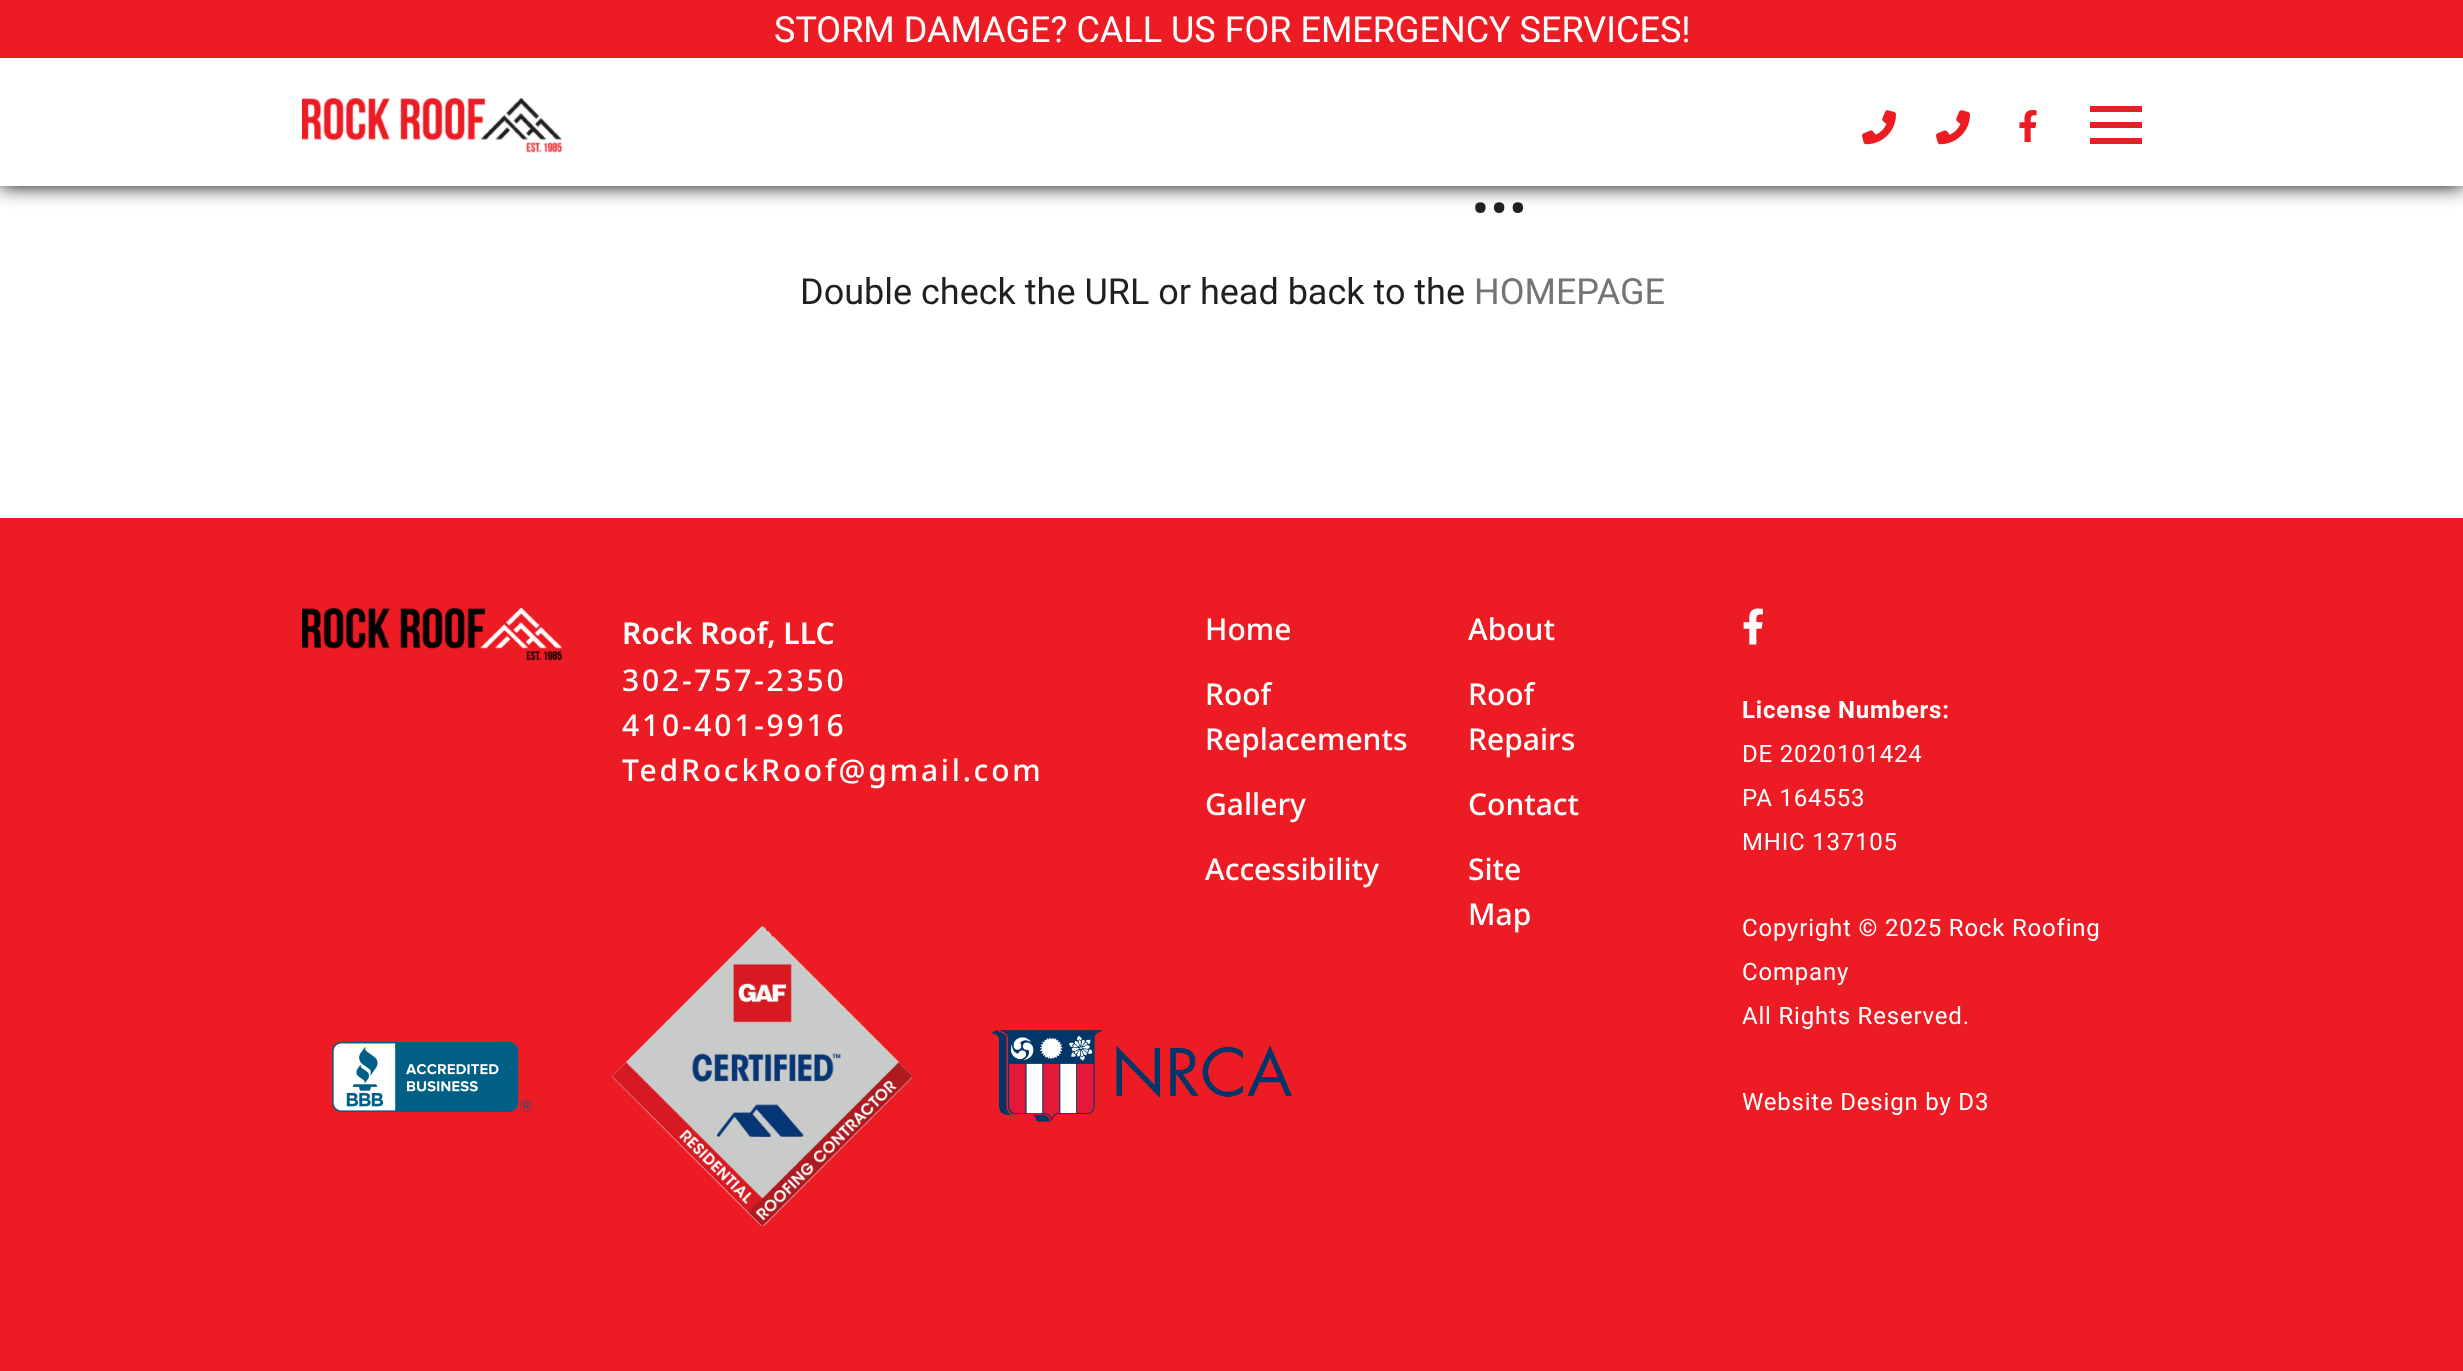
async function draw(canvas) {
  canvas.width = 2463
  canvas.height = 1371
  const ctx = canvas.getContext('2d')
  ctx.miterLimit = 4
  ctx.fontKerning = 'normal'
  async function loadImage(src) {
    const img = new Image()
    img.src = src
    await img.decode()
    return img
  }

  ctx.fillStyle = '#fff'
  ctx.fillRect(0, 0, 2463, 1371)
  ctx.fillStyle = '#000'
  ctx.filter = 'blur(10px)'
  ctx.beginPath()
  ctx.rect(0, 0, 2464, 186)
  ctx.fill()
  ctx.filter = 'none'
  ctx.fillStyle = '#fff'
  ctx.fillRect(0, 58, 2463, 128)
  ctx.fillStyle = '#ed1c24'
  ctx.fillRect(0, 0, 2463, 58)
  ctx.font = '36px Roboto'
  ctx.fillStyle = '#fff'
  ctx.fillText('STORM DAMAGE? CALL US FOR EMERGENCY SERVICES!', 774, 42)
  ctx.drawImage(await loadImage('image0.png'), 302, 98, 260, 55)
  ctx.drawImage(await loadImage('image1.png'), 1862, 110, 34, 35)
  ctx.drawImage(await loadImage('image1.png'), 1936, 110, 34, 35)
  ctx.drawImage(await loadImage('image2.png'), 2019, 110, 18, 32)
  ctx.fillStyle = '#ed1c24'
  ctx.fillRect(2090, 106, 52, 6)
  ctx.fillRect(2090, 122, 52, 6)
  ctx.fillRect(2090, 138, 52, 6)
  ctx.font = '600 68px Noto Sans'
  ctx.fillStyle = '#231f20'
  ctx.fillText('...', 1471, 212)
  ctx.font = '36px Roboto'
  ctx.fillText('Double check the URL or head back to the', 800, 304)
  ctx.fillStyle = '#747474'
  ctx.fillText('HOMEPAGE', 1474, 304)
  ctx.fillStyle = '#ed1c24'
  ctx.fillRect(0, 518, 2463, 853)
  ctx.drawImage(await loadImage('image3.png'), 302, 608, 260, 53)
  ctx.font = '600 30px Noto Sans'
  ctx.fillStyle = '#fff'
  ctx.fillText('Rock Roof, LLC', 622, 644)
  ctx.letterSpacing = '2.8px'
  ctx.font = '500 30px Noto Sans'
  ctx.fillText('302-757-2350', 622, 691)
  ctx.fillText('410-401-9916', 622, 736)
  ctx.fillText('TedRockRoof@gmail.com', 622, 781)
  ctx.letterSpacing = '0px'
  ctx.fillText('Home', 1205, 640)
  ctx.fillText('About', 1468, 640)
  ctx.fillText('Roof', 1205, 705)
  ctx.fillText('Replacements', 1205, 750)
  ctx.fillText('Roof', 1468, 705)
  ctx.fillText('Repairs', 1468, 750)
  ctx.fillText('Gallery', 1205, 815)
  ctx.fillText('Contact', 1468, 815)
  ctx.fillText('Accessibility', 1205, 880)
  ctx.fillText('Site', 1468, 880)
  ctx.fillText('Map', 1468, 925)
  ctx.drawImage(await loadImage('image4.png'), 1743, 608, 20, 37)
  ctx.letterSpacing = '0.8px'
  ctx.font = 'bold 24px Roboto'
  ctx.fillText('License Numbers:', 1742, 718)
  ctx.font = '24px Roboto'
  ctx.fillText('DE 2020101424', 1742, 762)
  ctx.fillText('PA 164553', 1742, 806)
  ctx.fillText('MHIC 137105', 1742, 850)
  ctx.fillText('Copyright © 2025 Rock Roofing', 1742, 936)
  ctx.fillText('Company', 1742, 980)
  ctx.fillText('All Rights Reserved.', 1742, 1024)
  ctx.fillText('Website Design by D3', 1742, 1110)
  ctx.drawImage(await loadImage('image5.png'), 332, 1042, 200, 70)
  ctx.drawImage(await loadImage('image6.png'), 612, 926, 300, 300)
  ctx.drawImage(await loadImage('image7.png'), 992, 1030, 300, 92)
}

draw(document.querySelector('canvas'))
